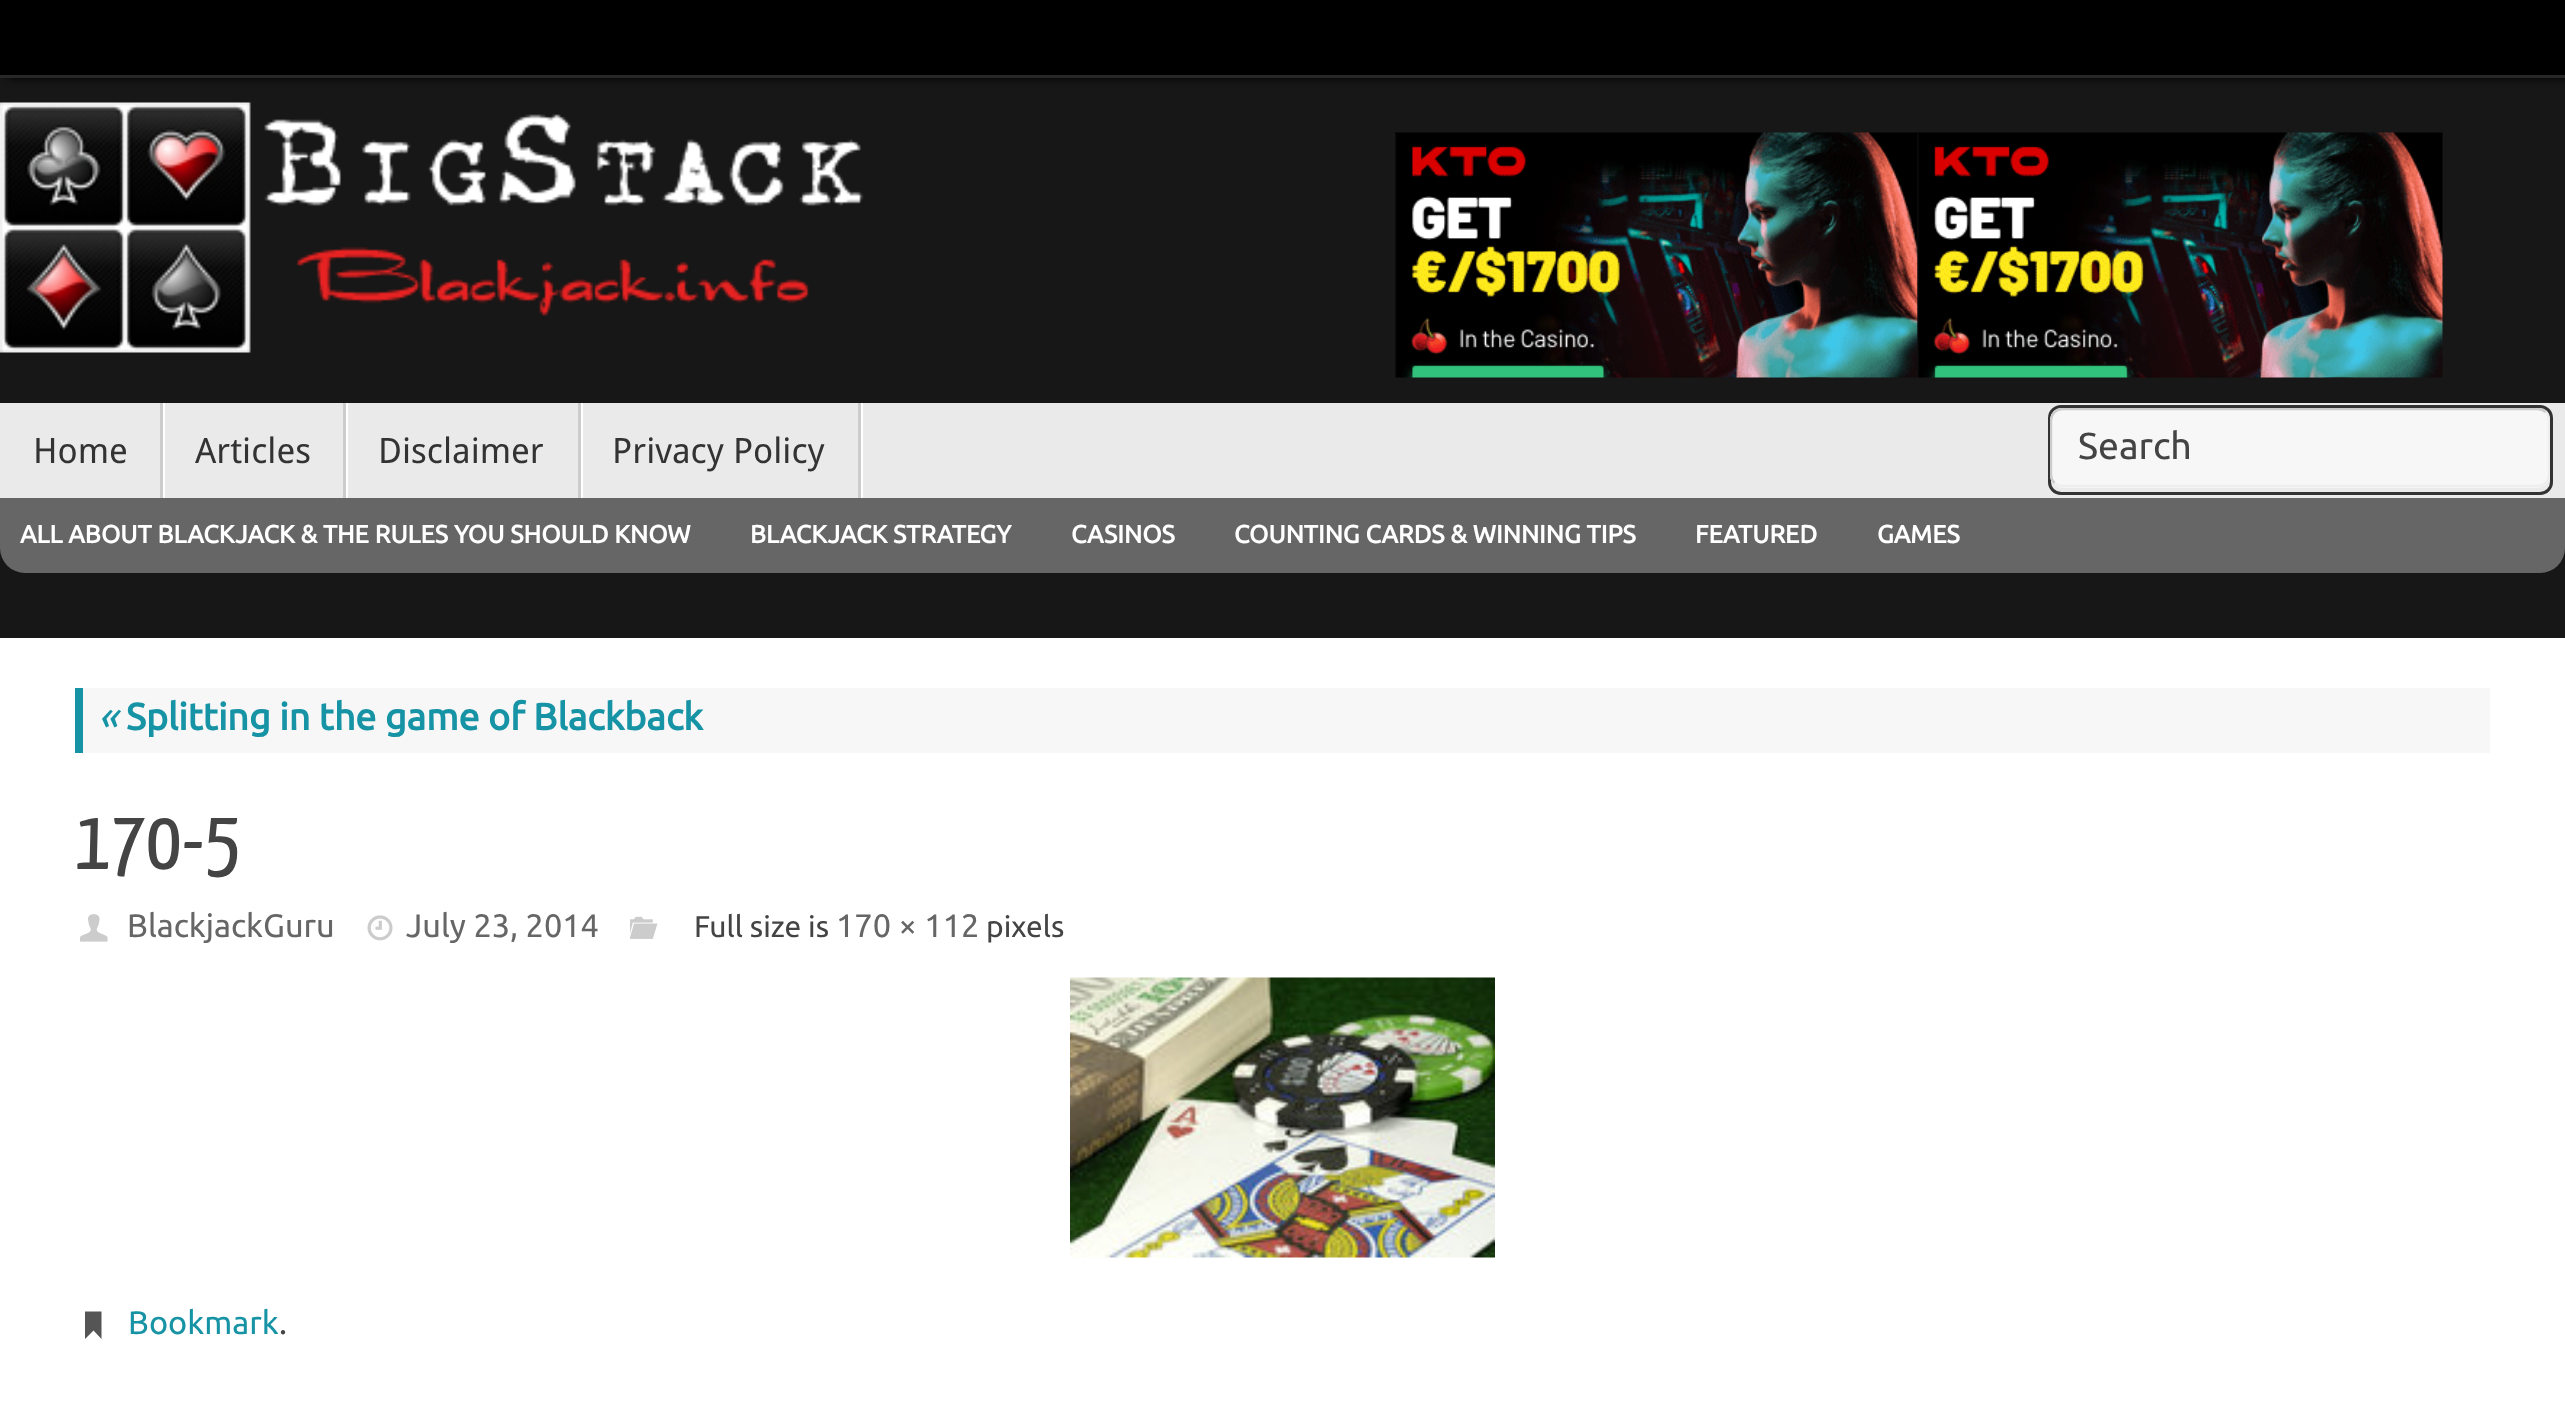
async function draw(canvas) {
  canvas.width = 2565
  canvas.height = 1408
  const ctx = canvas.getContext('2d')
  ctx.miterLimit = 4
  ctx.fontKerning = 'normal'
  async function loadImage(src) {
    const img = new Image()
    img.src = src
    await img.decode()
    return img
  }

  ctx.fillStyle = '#171717'
  ctx.fillRect(0, 0, 2565, 1408)
  ctx.fillStyle = '#000'
  ctx.filter = 'blur(4px)'
  ctx.beginPath()
  ctx.rect(8, 0, 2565, 78)
  ctx.fill()
  ctx.filter = 'none'
  ctx.fillRect(0, 0, 2565, 75)
  ctx.fillStyle = '#282828'
  ctx.fillRect(0, 75, 2565, 3)
  ctx.drawImage(await loadImage('image0.png'), 0, 102, 864, 251)
  ctx.drawImage(await loadImage('image1.png'), 1395, 132, 523, 246)
  ctx.drawImage(await loadImage('image2.png'), 1917, 132, 526, 246)
  ctx.fillStyle = '#eaeaea'
  ctx.fillRect(0, 403, 2565, 95)
  ctx.fillStyle = '#fff'
  ctx.beginPath()
  ctx.moveTo(3, 498)
  ctx.lineTo(165, 498)
  ctx.lineTo(165, 403)
  ctx.lineTo(162, 403)
  ctx.lineTo(162, 498)
  ctx.closePath()
  ctx.fill()
  ctx.fillStyle = '#ccc'
  ctx.fillRect(160, 403, 3, 95)
  ctx.font = '35px Droid Sans'
  ctx.fillStyle = '#333'
  ctx.fillText('Home', 33, 463)
  ctx.fillStyle = '#fff'
  ctx.beginPath()
  ctx.moveTo(165, 498)
  ctx.lineTo(348, 498)
  ctx.lineTo(348, 403)
  ctx.lineTo(345, 403)
  ctx.lineTo(345, 498)
  ctx.closePath()
  ctx.fill()
  ctx.fillStyle = '#ccc'
  ctx.fillRect(343, 403, 3, 95)
  ctx.fillStyle = '#333'
  ctx.fillText('Articles', 195, 463)
  ctx.fillStyle = '#fff'
  ctx.beginPath()
  ctx.moveTo(348, 498)
  ctx.lineTo(583, 498)
  ctx.lineTo(583, 403)
  ctx.lineTo(580, 403)
  ctx.lineTo(580, 498)
  ctx.closePath()
  ctx.fill()
  ctx.fillStyle = '#ccc'
  ctx.fillRect(578, 403, 3, 95)
  ctx.fillStyle = '#333'
  ctx.fillText('Disclaimer', 378, 463)
  ctx.fillStyle = '#fff'
  ctx.beginPath()
  ctx.moveTo(583, 498)
  ctx.lineTo(863, 498)
  ctx.lineTo(863, 403)
  ctx.lineTo(860, 403)
  ctx.lineTo(860, 498)
  ctx.closePath()
  ctx.fill()
  ctx.fillStyle = '#ccc'
  ctx.fillRect(858, 403, 3, 95)
  ctx.fillStyle = '#333'
  ctx.fillText('Privacy Policy', 612, 463)
  ctx.beginPath()
  ctx.roundRect(2049.5, 406.5, 502, 87, 11.5)
  ctx.strokeStyle = '#333'
  ctx.lineWidth = 3
  ctx.stroke()
  ctx.fillStyle = '#f7f7f7'
  ctx.beginPath()
  ctx.roundRect(2050, 408, 500, 80, 13)
  ctx.fill()
  ctx.save()
  ctx.beginPath()
  ctx.roundRect(2050, 408, 500, 85, 10)
  ctx.clip()
  ctx.beginPath()
  ctx.moveTo(2545.5, 412)
  ctx.bezierCurveTo(2547.5, 414, 2549, 417, 2549, 420)
  ctx.lineTo(2549, 475)
  ctx.bezierCurveTo(2549, 478, 2547.5, 481, 2545.5, 483)
  ctx.bezierCurveTo(2543.5, 485, 2540.5, 486, 2537.5, 486)
  ctx.lineTo(2062.5, 486)
  ctx.bezierCurveTo(2059.5, 486, 2056.5, 485, 2054.5, 483)
  ctx.strokeStyle = '#eee'
  ctx.lineWidth = 2.5
  ctx.stroke()
  ctx.beginPath()
  ctx.moveTo(2054.5, 483)
  ctx.bezierCurveTo(2052.5, 481, 2051, 478, 2051, 475)
  ctx.lineTo(2051, 420)
  ctx.bezierCurveTo(2051, 417, 2052.5, 414, 2054.5, 412)
  ctx.bezierCurveTo(2056.5, 410, 2059.5, 409, 2062.5, 409)
  ctx.lineTo(2537.5, 409)
  ctx.bezierCurveTo(2540.5, 409, 2543.5, 410, 2545.5, 412)
  ctx.strokeStyle = '#ccc'
  ctx.stroke()
  ctx.restore()
  ctx.font = '37.5px Ubuntu'
  ctx.fillStyle = '#444'
  ctx.fillText('Search', 2078, 459)
  ctx.fillStyle = '#666'
  ctx.beginPath()
  ctx.roundRect(0, 498, 2565, 75, [0, 0, 25, 25])
  ctx.fill()
  ctx.font = 'bold 25px Ubuntu'
  ctx.fillStyle = '#fff'
  ctx.fillText('ALL ABOUT BLACKJACK & THE RULES YOU SHOULD KNOW', 20, 543)
  ctx.fillText('BLACKJACK STRATEGY', 750, 543)
  ctx.fillText('CASINOS', 1071, 543)
  ctx.fillText('COUNTING CARDS & WINNING TIPS', 1234, 543)
  ctx.fillText('FEATURED', 1695, 543)
  ctx.fillText('GAMES', 1877, 543)
  ctx.fillRect(0, 638, 2565, 770)
  ctx.fillStyle = '#f7f7f7'
  ctx.fillRect(83, 688, 2407, 65)
  ctx.fillStyle = '#1693a5'
  ctx.fillRect(75, 688, 8, 65)
  ctx.font = 'italic 40px Ubuntu'
  ctx.fillText('«', 98, 730)
  ctx.font = 'bold 37.5px Ubuntu'
  ctx.fillText('Splitting in the game of Blackback', 126, 730)
  ctx.font = '85px Yanone Kaffeesatz'
  ctx.fillStyle = '#444'
  ctx.fillText('170-5', 75, 869)
  ctx.drawImage(await loadImage('image3.png'), 80, 914, 28, 28)
  ctx.font = '32.5px Ubuntu'
  ctx.fillStyle = '#666'
  ctx.fillText('BlackjackGuru', 127, 937)
  ctx.drawImage(await loadImage('image4.png'), 367, 915, 26, 26)
  ctx.fillText('July 23, 2014', 406, 937)
  ctx.drawImage(await loadImage('image5.png'), 630, 916, 28, 23)
  ctx.font = '30px Ubuntu'
  ctx.fillStyle = '#444'
  ctx.fillText('Full size is', 694, 937)
  ctx.font = '32.5px Ubuntu'
  ctx.fillStyle = '#666'
  ctx.fillText('170 × 112', 836, 937)
  ctx.font = '30px Ubuntu'
  ctx.fillStyle = '#444'
  ctx.fillText('pixels', 986, 937)
  ctx.drawImage(await loadImage('image6.png'), 1070, 977, 425, 281)
  ctx.fillStyle = '#555'
  ctx.beginPath()
  ctx.moveTo(85, 1336.5)
  ctx.lineTo(85, 1311.5)
  ctx.lineTo(101.5, 1311.5)
  ctx.lineTo(101.5, 1339)
  ctx.lineTo(93.5, 1330.5)
  ctx.lineTo(85, 1339)
  ctx.closePath()
  ctx.fill()
  ctx.font = '32.5px Ubuntu'
  ctx.fillStyle = '#1693a5'
  ctx.fillText('Bookmark', 128, 1334)
  ctx.fillStyle = '#444'
  ctx.fillText('.', 279, 1334)
}

draw(document.querySelector('canvas'))
